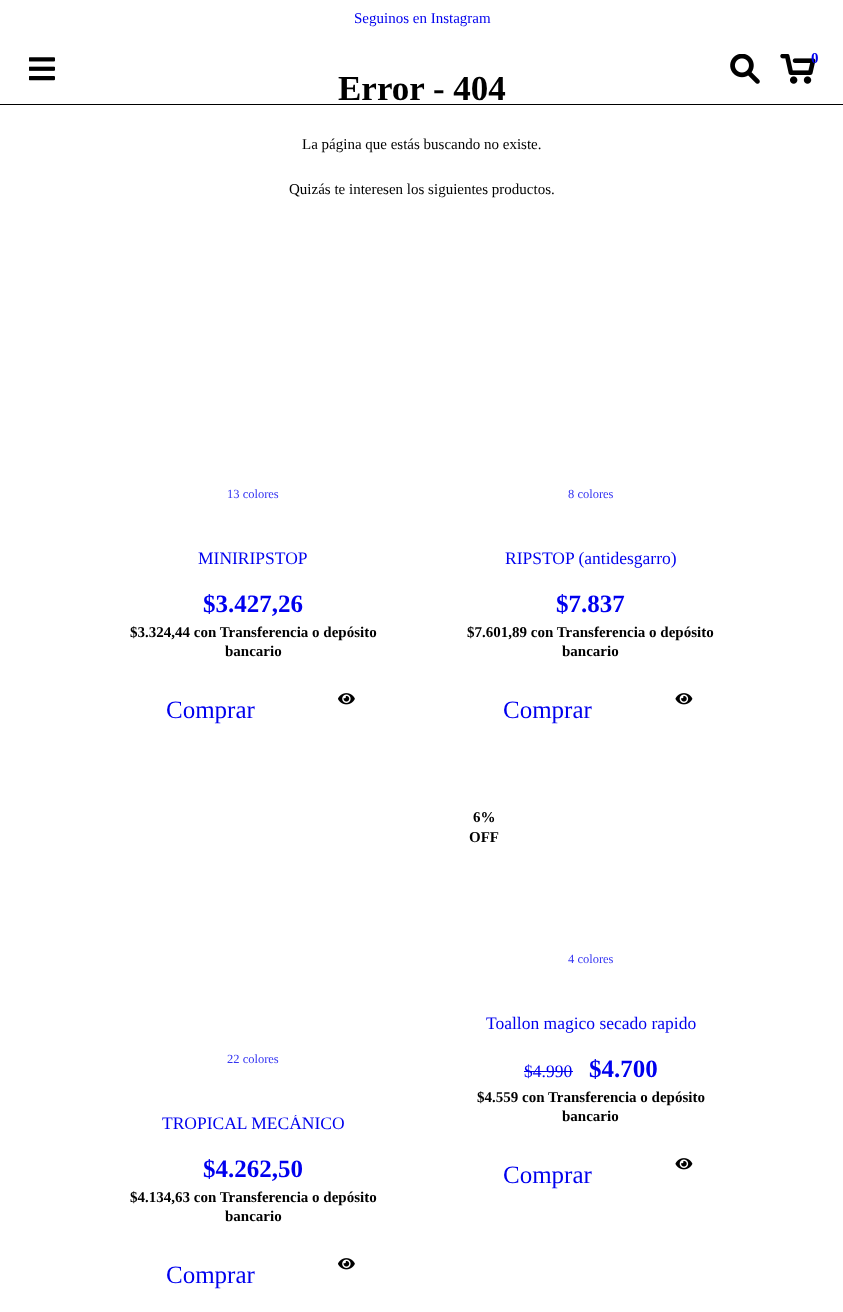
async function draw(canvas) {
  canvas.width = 843
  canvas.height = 1312
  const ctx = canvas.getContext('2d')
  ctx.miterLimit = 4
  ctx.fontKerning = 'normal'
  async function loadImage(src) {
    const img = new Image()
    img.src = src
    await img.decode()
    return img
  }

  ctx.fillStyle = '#fff'
  ctx.fillRect(0, 0, 843, 1312)
  ctx.font = '15px Liberation Serif'
  ctx.fillStyle = '#00e'
  ctx.fillText('Seguinos en Instagram', 354, 23)
  ctx.drawImage(await loadImage('image0.png'), 29, 57, 26, 24)
  ctx.drawImage(await loadImage('image1.png'), 730, 54, 30, 30)
  ctx.drawImage(await loadImage('image2.png'), 780, 54, 36, 30)
  ctx.font = 'bold 15px Liberation Serif'
  ctx.fillText('0', 811, 63)
  ctx.fillStyle = '#000'
  ctx.fillRect(0, 104, 843, 1)
  ctx.font = 'bold 35px Liberation Serif'
  ctx.fillText('Error - 404', 338, 100)
  ctx.font = '15px Liberation Serif'
  ctx.fillText('La página que estás buscando no existe.', 302, 149)
  ctx.fillText('Quizás te interesen los siguientes productos.', 289, 194)
  ctx.font = '12.5px Liberation Serif'
  ctx.fillStyle = '#3333f1'
  ctx.fillText('13 colores', 227, 498)
  ctx.font = '17.5px Liberation Serif'
  ctx.fillStyle = '#00e'
  ctx.fillText('MINIRIPSTOP', 198, 564)
  ctx.font = 'bold 25px Liberation Serif'
  ctx.fillText('$3.427,26', 203, 612)
  ctx.font = 'bold 15px Liberation Serif'
  ctx.fillStyle = '#000'
  ctx.fillText('$3.324,44 con Transferencia o depósito', 130, 637)
  ctx.fillText('bancario', 225, 656)
  ctx.drawImage(await loadImage('image3.png'), 338, 693, 17, 12)
  ctx.font = '25px Liberation Serif'
  ctx.fillStyle = '#00e'
  ctx.fillText('Comprar', 166, 718)
  ctx.font = '12.5px Liberation Serif'
  ctx.fillStyle = '#3333f1'
  ctx.fillText('8 colores', 568, 498)
  ctx.font = '17.5px Liberation Serif'
  ctx.fillStyle = '#00e'
  ctx.fillText('RIPSTOP (antidesgarro)', 505, 564)
  ctx.font = 'bold 25px Liberation Serif'
  ctx.fillText('$7.837', 556, 612)
  ctx.font = 'bold 15px Liberation Serif'
  ctx.fillStyle = '#000'
  ctx.fillText('$7.601,89 con Transferencia o depósito', 467, 637)
  ctx.fillText('bancario', 562, 656)
  ctx.drawImage(await loadImage('image4.png'), 675, 693, 18, 12)
  ctx.font = '25px Liberation Serif'
  ctx.fillStyle = '#00e'
  ctx.fillText('Comprar', 503, 718)
  ctx.font = '12.5px Liberation Serif'
  ctx.fillStyle = '#3333f1'
  ctx.fillText('22 colores', 227, 1063)
  ctx.save()
  ctx.beginPath()
  ctx.rect(124, 1115, 260, 20)
  ctx.clip()
  ctx.font = '17.5px Liberation Serif'
  ctx.fillStyle = '#00e'
  ctx.fillText('TROPICAL MECÁNICO', 162, 1129)
  ctx.restore()
  ctx.font = 'bold 25px Liberation Serif'
  ctx.fillStyle = '#00e'
  ctx.fillText('$4.262,50', 203, 1177)
  ctx.font = 'bold 15px Liberation Serif'
  ctx.fillStyle = '#000'
  ctx.fillText('$4.134,63 con Transferencia o depósito', 130, 1202)
  ctx.fillText('bancario', 225, 1221)
  ctx.drawImage(await loadImage('image3.png'), 338, 1258, 17, 12)
  ctx.font = '25px Liberation Serif'
  ctx.fillStyle = '#00e'
  ctx.fillText('Comprar', 166, 1283)
  ctx.font = 'bold 15px Liberation Serif'
  ctx.fillStyle = '#000'
  ctx.fillText('6%', 473, 822)
  ctx.fillText('OFF', 469, 842)
  ctx.font = '12.5px Liberation Serif'
  ctx.fillStyle = '#3333f1'
  ctx.fillText('4 colores', 568, 963)
  ctx.font = '17.5px Liberation Serif'
  ctx.fillStyle = '#00e'
  ctx.fillText('Toallon magico secado rapido', 486, 1029)
  ctx.fillText('$4.990', 524, 1077)
  ctx.fillRect(524, 1071, 49, 1)
  ctx.font = 'bold 25px Liberation Serif'
  ctx.fillText('$4.700', 589, 1077)
  ctx.font = 'bold 15px Liberation Serif'
  ctx.fillStyle = '#000'
  ctx.fillText('$4.559 con Transferencia o depósito', 477, 1102)
  ctx.fillText('bancario', 562, 1121)
  ctx.drawImage(await loadImage('image4.png'), 675, 1158, 18, 12)
  ctx.font = '25px Liberation Serif'
  ctx.fillStyle = '#00e'
  ctx.fillText('Comprar', 503, 1183)
}

draw(document.querySelector('canvas'))
